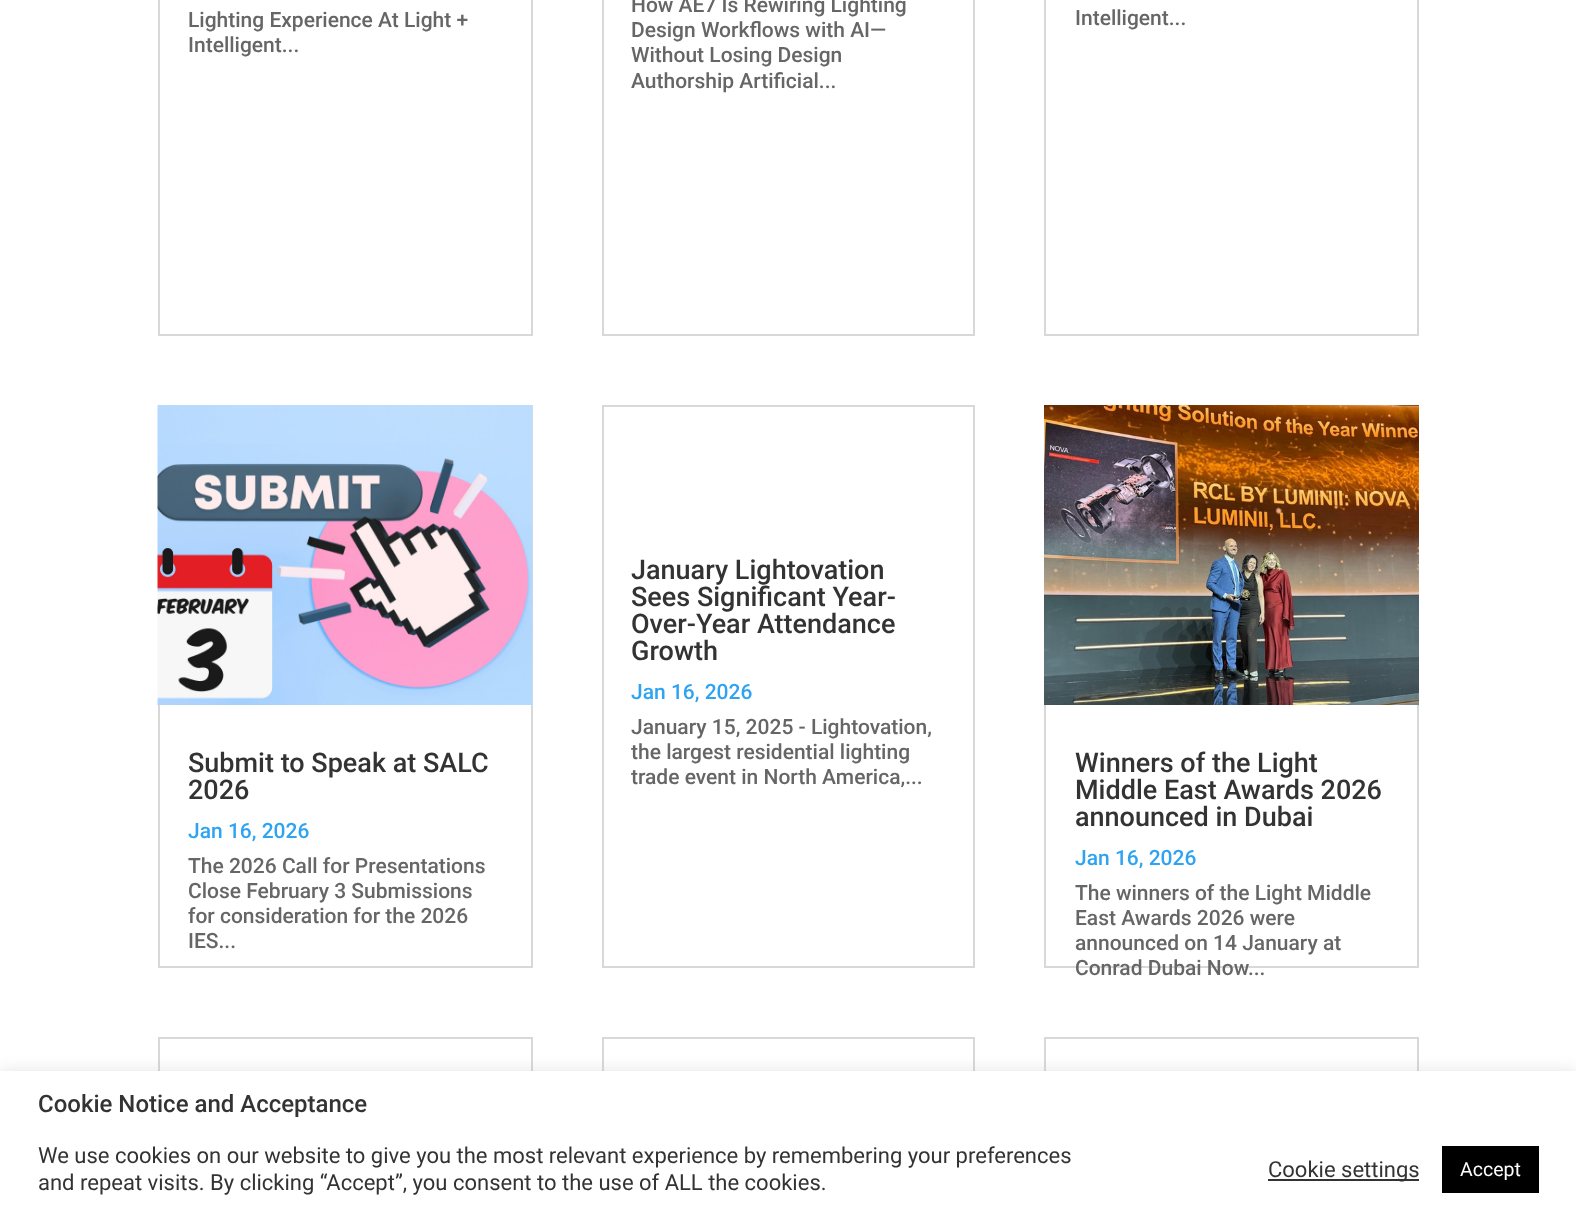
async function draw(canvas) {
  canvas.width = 1576
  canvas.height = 1221
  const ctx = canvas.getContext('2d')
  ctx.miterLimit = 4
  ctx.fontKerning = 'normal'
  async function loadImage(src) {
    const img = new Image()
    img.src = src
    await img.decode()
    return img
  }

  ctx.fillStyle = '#fff'
  ctx.fillRect(0, 0, 1576, 1221)
  ctx.strokeStyle = '#d8d8d8'
  ctx.lineWidth = 2
  ctx.strokeRect(159, -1, 373, 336)
  ctx.font = '500 21px Roboto'
  ctx.fillStyle = '#666'
  ctx.fillText('Lighting Experience At Light +', 188, 27)
  ctx.fillText('Intelligent...', 188, 52)
  ctx.strokeRect(159, 406, 373, 561)
  ctx.drawImage(await loadImage('image0.png'), 157, 405, 376, 300)
  ctx.font = '500 27px Roboto'
  ctx.fillStyle = '#333'
  ctx.fillText('Submit to Speak at SALC', 188, 772)
  ctx.fillText('2026', 188, 799)
  ctx.font = '500 21px Roboto'
  ctx.fillStyle = '#2ea3f2'
  ctx.fillText('Jan 16, 2026', 188, 838)
  ctx.fillStyle = '#666'
  ctx.fillText('The 2026 Call for Presentations', 188, 873)
  ctx.fillText('Close February 3 Submissions', 188, 898)
  ctx.fillText('for consideration for the 2026', 188, 923)
  ctx.fillText('IES...', 188, 948)
  ctx.strokeRect(159, 1038, 373, 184)
  ctx.strokeRect(603, -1, 371, 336)
  ctx.fillText('How AE7 Is Rewiring Lighting', 631, 12)
  ctx.fillText('Design Workflows with AI—', 631, 37)
  ctx.fillText('Without Losing Design', 631, 62)
  ctx.fillText('Authorship Artificial...', 631, 88)
  ctx.strokeRect(603, 406, 371, 561)
  ctx.font = '500 27px Roboto'
  ctx.fillStyle = '#333'
  ctx.fillText('January Lightovation', 631, 579)
  ctx.fillText('Sees Significant Year-', 631, 606)
  ctx.fillText('Over-Year Attendance', 631, 633)
  ctx.fillText('Growth', 631, 660)
  ctx.font = '500 21px Roboto'
  ctx.fillStyle = '#2ea3f2'
  ctx.fillText('Jan 16, 2026', 631, 699)
  ctx.fillStyle = '#666'
  ctx.fillText('January 15, 2025 - Lightovation,', 631, 734)
  ctx.fillText('the largest residential lighting', 631, 759)
  ctx.fillText('trade event in North America,...', 631, 784)
  ctx.strokeRect(603, 1038, 371, 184)
  ctx.strokeRect(1045, -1, 373, 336)
  ctx.fillText('Intelligent...', 1075, 25)
  ctx.strokeRect(1045, 406, 373, 561)
  ctx.drawImage(await loadImage('image1.png'), 1044, 405, 375, 300)
  ctx.font = '500 27px Roboto'
  ctx.fillStyle = '#333'
  ctx.fillText('Winners of the Light', 1075, 772)
  ctx.fillText('Middle East Awards 2026', 1075, 799)
  ctx.fillText('announced in Dubai', 1075, 826)
  ctx.font = '500 21px Roboto'
  ctx.fillStyle = '#2ea3f2'
  ctx.fillText('Jan 16, 2026', 1075, 865)
  ctx.fillStyle = '#666'
  ctx.fillText('The winners of the Light Middle', 1075, 900)
  ctx.fillText('East Awards 2026 were', 1075, 925)
  ctx.fillText('announced on 14 January at', 1075, 950)
  ctx.fillText('Conrad Dubai Now...', 1075, 975)
  ctx.strokeRect(1045, 1038, 373, 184)
  ctx.fillStyle = '#acabab4d'
  ctx.filter = 'blur(7.5px)'
  ctx.beginPath()
  ctx.rect(0, 1070, 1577, 150)
  ctx.fill()
  ctx.filter = 'none'
  ctx.fillStyle = '#fff'
  ctx.fillRect(0, 1071, 1576, 150)
  ctx.font = '500 24px Roboto'
  ctx.fillStyle = '#333'
  ctx.fillText('Cookie Notice and Acceptance', 38, 1112)
  ctx.font = '22px Roboto'
  ctx.fillText('We use cookies on our website to give you the most relevant experience by remembering your preferences', 38, 1163)
  ctx.fillText('and repeat visits. By clicking “Accept”, you consent to the use of ALL the cookies.', 38, 1190)
  ctx.fillRect(1268, 1179, 151, 2)
  ctx.fillText('Cookie settings', 1268, 1177)
  ctx.fillStyle = '#000'
  ctx.fillRect(1442, 1146, 97, 47)
  ctx.font = '19.5px Roboto'
  ctx.fillStyle = '#fff'
  ctx.fillText('Accept', 1460, 1176)
}

draw(document.querySelector('canvas'))
